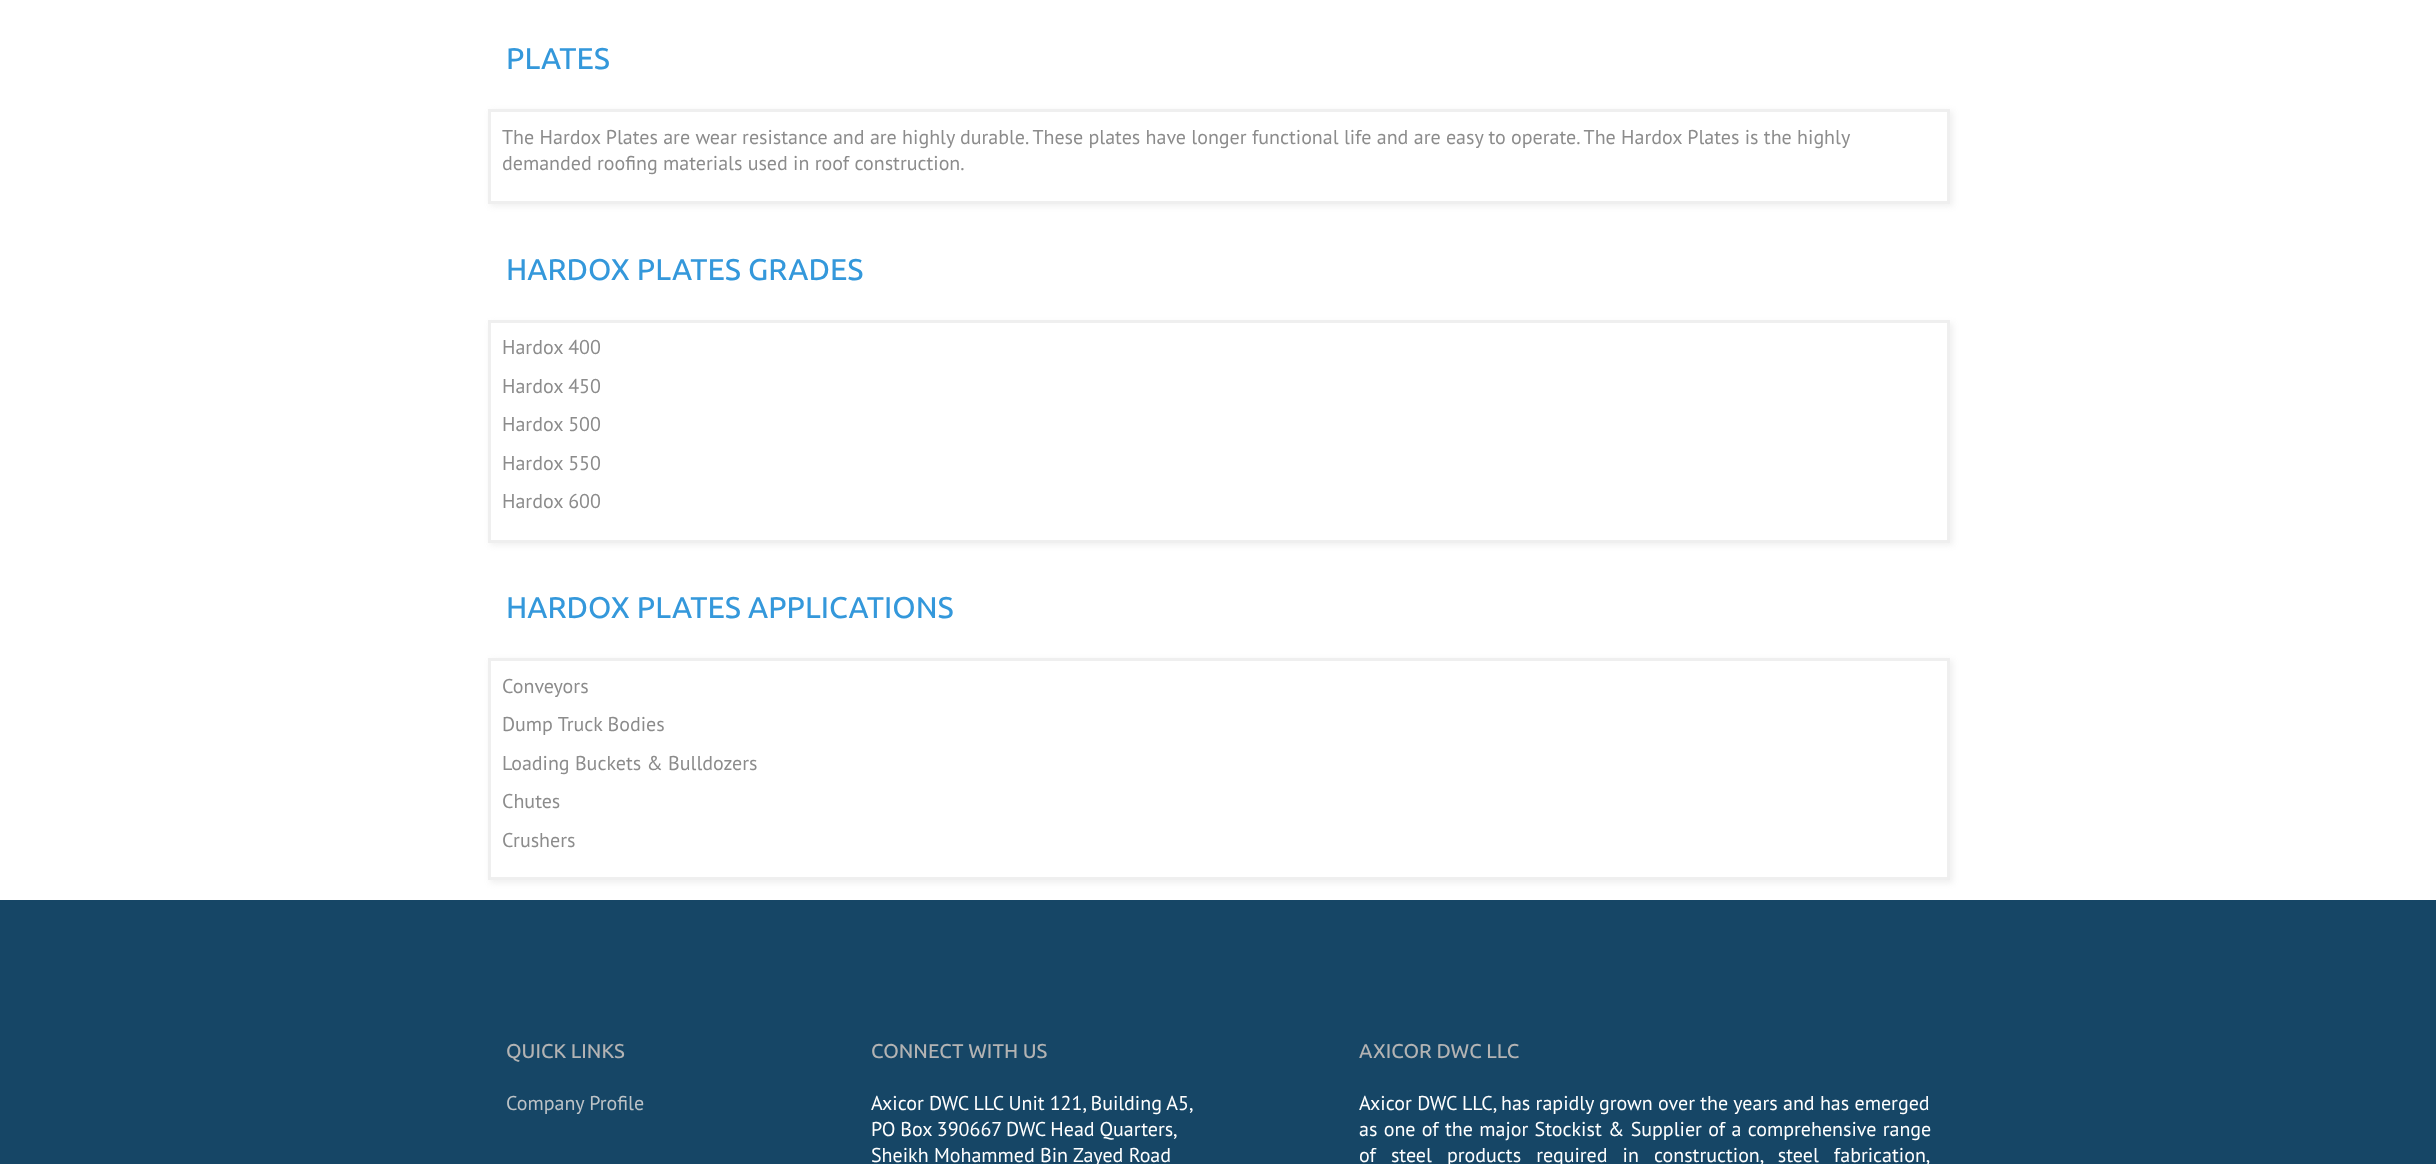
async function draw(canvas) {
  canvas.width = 2436
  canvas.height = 1164
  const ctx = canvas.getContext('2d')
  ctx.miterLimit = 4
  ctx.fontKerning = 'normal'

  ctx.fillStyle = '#fff'
  ctx.fillRect(0, 0, 2436, 1164)
  ctx.font = '500 30px Ubuntu'
  ctx.fillStyle = '#3498db'
  ctx.fillText('PLATES', 506, 69)
  ctx.save()
  ctx.beginPath()
  ctx.moveTo(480, 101)
  ctx.lineTo(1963, 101)
  ctx.lineTo(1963, 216)
  ctx.lineTo(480, 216)
  ctx.closePath()
  ctx.moveTo(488, 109)
  ctx.lineTo(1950, 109)
  ctx.lineTo(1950, 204)
  ctx.lineTo(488, 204)
  ctx.closePath()
  ctx.clip('evenodd')
  ctx.fillStyle = '#efefef'
  ctx.filter = 'blur(3px)'
  ctx.beginPath()
  ctx.rect(490, 111, 1463, 95)
  ctx.fill()
  ctx.filter = 'none'
  ctx.restore()
  ctx.strokeStyle = '#efefef'
  ctx.lineWidth = 3
  ctx.strokeRect(489.5, 110.5, 1459, 92)
  ctx.font = '20px PT Sans'
  ctx.fillStyle = '#8c8c8c'
  ctx.fillText('The Hardox Plates are wear resistance and are highly durable. These plates have longer functional life and are easy to operate. The Hardox Plates is the highly', 502, 144)
  ctx.fillText('demanded roofing materials used in roof construction.', 502, 170)
  ctx.font = '500 30px Ubuntu'
  ctx.fillStyle = '#3498db'
  ctx.fillText('HARDOX PLATES GRADES', 506, 280)
  ctx.save()
  ctx.beginPath()
  ctx.moveTo(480, 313)
  ctx.lineTo(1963, 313)
  ctx.lineTo(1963, 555)
  ctx.lineTo(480, 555)
  ctx.closePath()
  ctx.moveTo(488, 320)
  ctx.lineTo(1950, 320)
  ctx.lineTo(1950, 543)
  ctx.lineTo(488, 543)
  ctx.closePath()
  ctx.clip('evenodd')
  ctx.fillStyle = '#efefef'
  ctx.filter = 'blur(3px)'
  ctx.beginPath()
  ctx.rect(490, 323, 1463, 222)
  ctx.fill()
  ctx.filter = 'none'
  ctx.restore()
  ctx.strokeRect(489.5, 321.5, 1459, 220)
  ctx.font = '20px PT Sans'
  ctx.fillStyle = '#8c8c8c'
  ctx.fillText('Hardox 400', 502, 354)
  ctx.fillText('Hardox 450', 502, 393)
  ctx.fillText('Hardox 500', 502, 431)
  ctx.fillText('Hardox 550', 502, 470)
  ctx.fillText('Hardox 600', 502, 508)
  ctx.font = '500 30px Ubuntu'
  ctx.fillStyle = '#3498db'
  ctx.fillText('HARDOX PLATES APPLICATIONS', 506, 618)
  ctx.save()
  ctx.beginPath()
  ctx.moveTo(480, 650)
  ctx.lineTo(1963, 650)
  ctx.lineTo(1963, 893)
  ctx.lineTo(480, 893)
  ctx.closePath()
  ctx.moveTo(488, 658)
  ctx.lineTo(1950, 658)
  ctx.lineTo(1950, 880)
  ctx.lineTo(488, 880)
  ctx.closePath()
  ctx.clip('evenodd')
  ctx.fillStyle = '#efefef'
  ctx.filter = 'blur(3px)'
  ctx.beginPath()
  ctx.rect(490, 660, 1463, 223)
  ctx.fill()
  ctx.filter = 'none'
  ctx.restore()
  ctx.strokeRect(489.5, 659.5, 1459, 219)
  ctx.font = '20px PT Sans'
  ctx.fillStyle = '#8c8c8c'
  ctx.fillText('Conveyors', 502, 693)
  ctx.fillText('Dump Truck Bodies', 502, 731)
  ctx.fillText('Loading Buckets & Bulldozers', 502, 770)
  ctx.fillText('Chutes', 502, 808)
  ctx.fillText('Crushers', 502, 847)
  ctx.fillStyle = '#164666'
  ctx.fillRect(0, 900, 2436, 264)
  ctx.font = '500 20px Ubuntu'
  ctx.fillStyle = '#b3b3b3'
  ctx.fillText('QUICK LINKS', 506, 1058)
  ctx.font = '20px PT Sans'
  ctx.fillStyle = '#bdc3c7'
  ctx.fillText('Company Profile', 506, 1110)
  ctx.font = '500 20px Ubuntu'
  ctx.fillStyle = '#b3b3b3'
  ctx.fillText('CONNECT WITH US', 871, 1058)
  ctx.wordSpacing = '-0.25px'
  ctx.font = '20px PT Sans'
  ctx.fillStyle = '#fff'
  ctx.fillText('Axicor DWC LLC Unit 121, Building A5,', 871, 1110)
  ctx.wordSpacing = '-0.5px'
  ctx.fillText('PO Box 390667 DWC Head Quarters,', 871, 1136)
  ctx.wordSpacing = '0px'
  ctx.fillText('Sheikh Mohammed Bin Zayed Road', 871, 1162)
  ctx.font = '500 20px Ubuntu'
  ctx.fillStyle = '#b3b3b3'
  ctx.fillText('AXICOR DWC LLC', 1359, 1058)
  ctx.font = '20px PT Sans'
  ctx.fillStyle = '#fff'
  ctx.fillText('Axicor DWC LLC, has rapidly grown over the years and has emerged', 1359, 1110)
  ctx.wordSpacing = '1px'
  ctx.fillText('as one of the major Stockist & Supplier of a comprehensive range', 1359, 1136)
  ctx.wordSpacing = '9.75px'
  ctx.fillText('of steel products required in construction, steel fabrication,', 1359, 1162)
}

draw(document.querySelector('canvas'))
